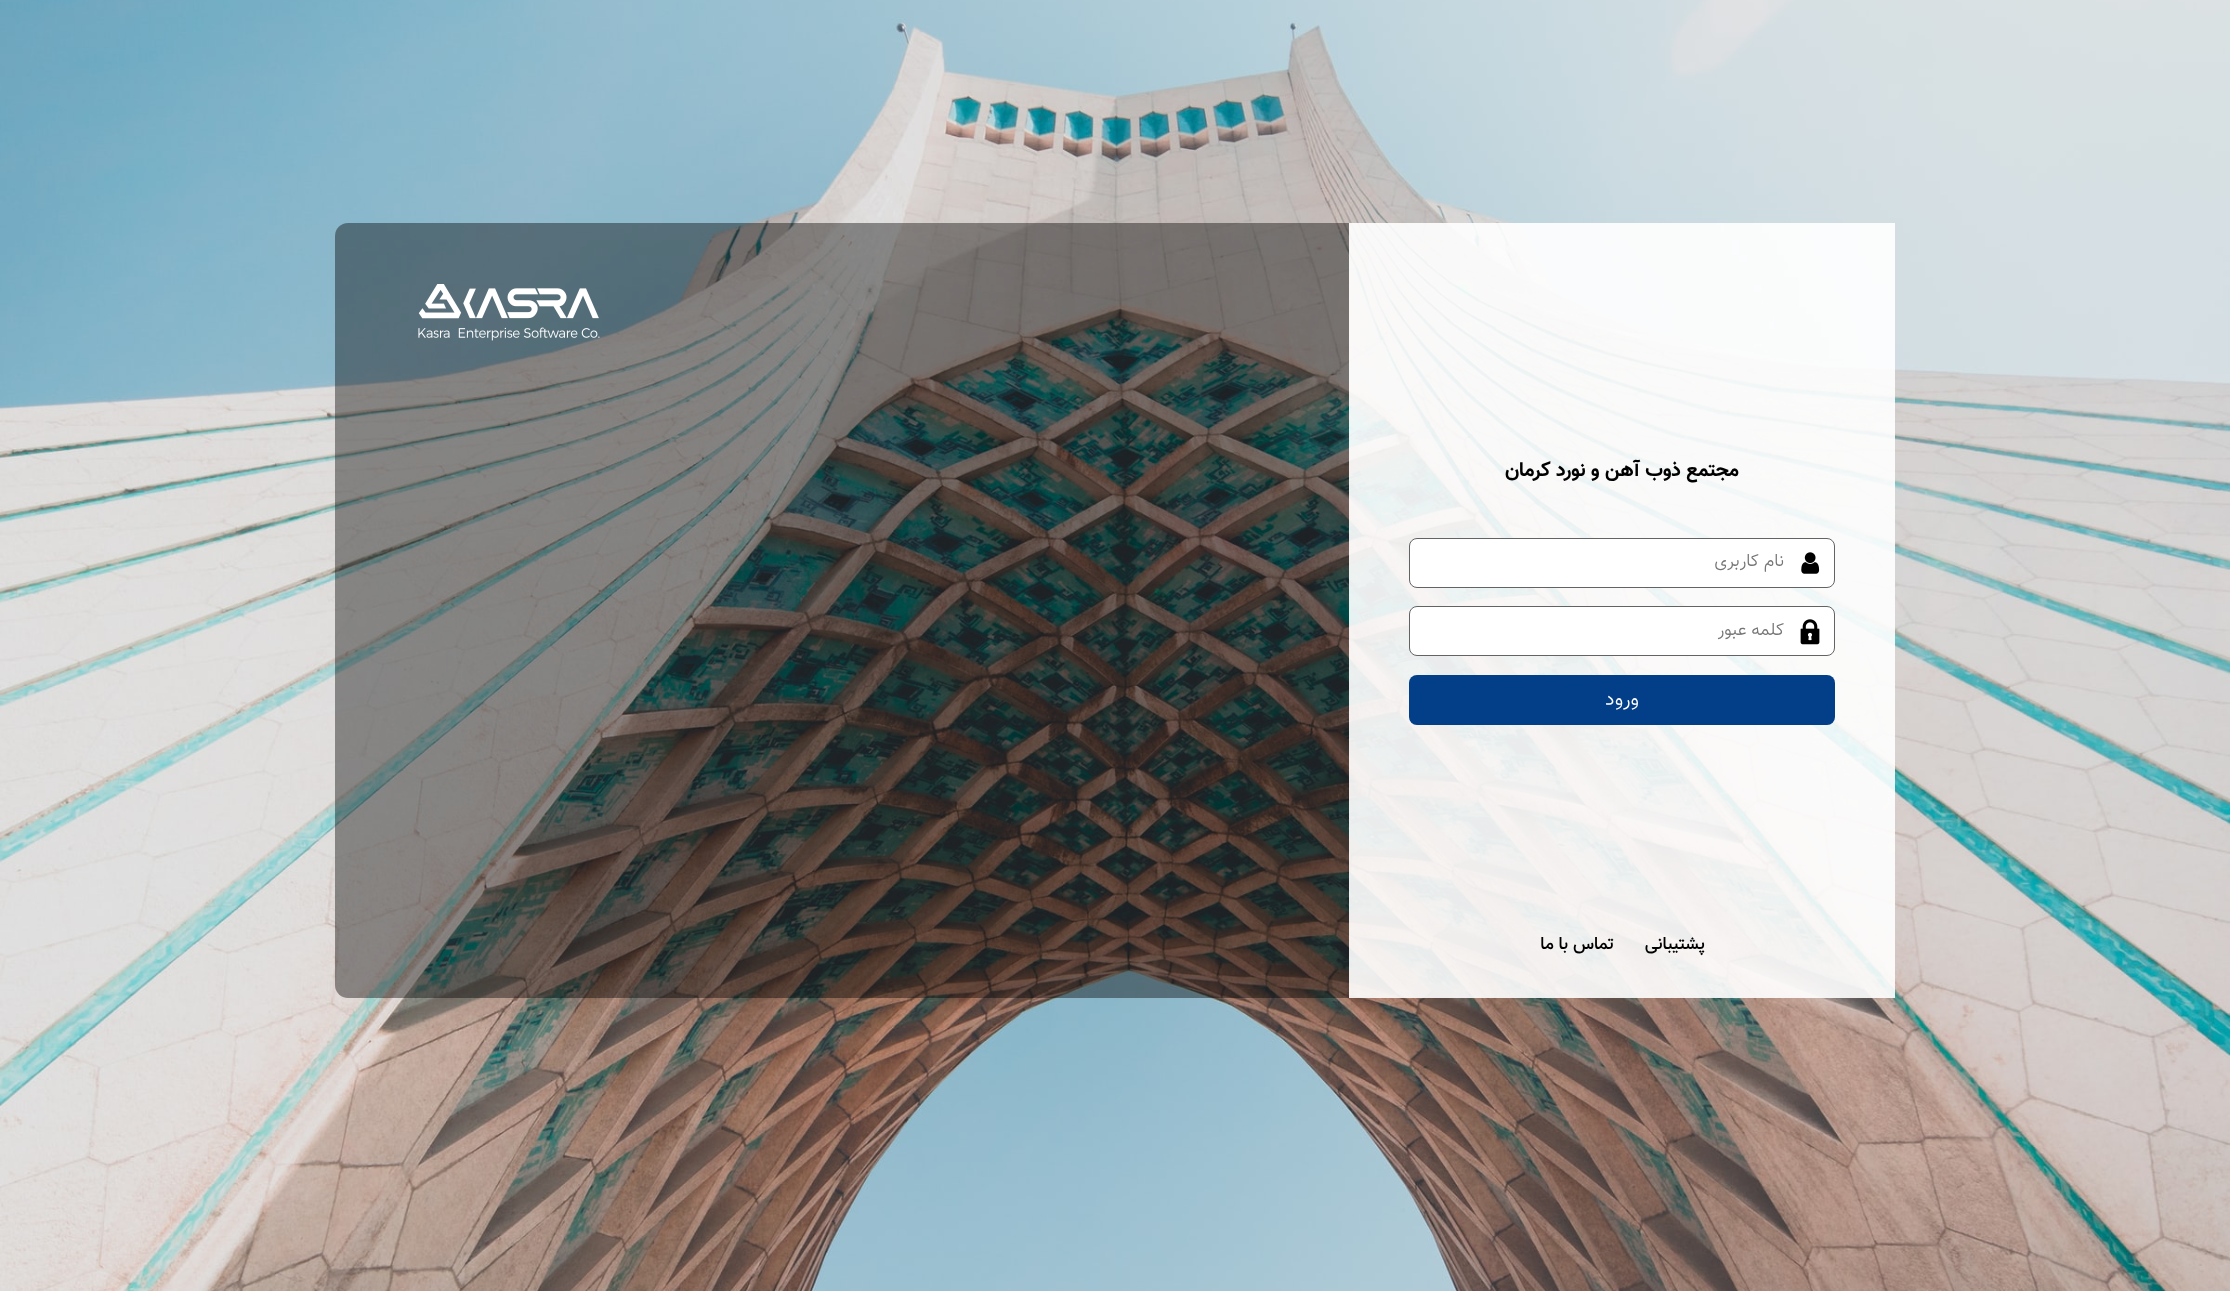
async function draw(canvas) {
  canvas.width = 2230
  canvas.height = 1291
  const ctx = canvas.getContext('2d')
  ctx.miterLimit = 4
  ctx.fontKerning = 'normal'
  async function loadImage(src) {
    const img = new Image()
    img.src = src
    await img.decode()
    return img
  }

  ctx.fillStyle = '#fff'
  ctx.fillRect(0, 0, 2230, 1291)
  ctx.drawImage(await loadImage('image0.png'), 0, 0, 2230, 1291)
  ctx.fillStyle = '#00000066'
  ctx.beginPath()
  ctx.roundRect(335, 223, 1014, 775, [13, 0, 0, 13])
  ctx.fill()
  ctx.drawImage(await loadImage('image1.png'), 418, 284, 182, 57)
  ctx.fillStyle = '#ffffffe6'
  ctx.fillRect(1349, 223, 546, 775)
  ctx.direction = 'rtl'
  ctx.font = 'bold 20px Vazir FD'
  ctx.fillStyle = '#000'
  ctx.fillText('مجتمع ذوب آهن و نورد کرمان', 1739, 476)
  ctx.fillStyle = '#fff'
  ctx.beginPath()
  ctx.roundRect(1409.5, 538.5, 425, 49, 7.5)
  ctx.fill()
  ctx.strokeStyle = '#636363'
  ctx.stroke()
  ctx.drawImage(await loadImage('image2.png'), 1801, 552, 19, 22)
  ctx.font = '300 17.5px Vazir FD'
  ctx.fillStyle = '#757575'
  ctx.fillText('نام کاربری', 1784, 566)
  ctx.fillStyle = '#fff'
  ctx.beginPath()
  ctx.roundRect(1409.5, 606.5, 425, 49, 7.5)
  ctx.fill()
  ctx.stroke()
  ctx.drawImage(await loadImage('image3.png'), 1800, 619, 20, 26)
  ctx.fillStyle = '#757575'
  ctx.fillText('کلمه عبور', 1784, 635)
  ctx.fillStyle = '#023f88'
  ctx.beginPath()
  ctx.roundRect(1409, 675, 426, 50, 8)
  ctx.fill()
  ctx.font = '300 20px Vazir FD'
  ctx.fillStyle = '#fff'
  ctx.fillText('ورود', 1639, 705)
  ctx.font = '500 17.5px Vazir FD'
  ctx.fillStyle = '#000'
  ctx.fillText('پشتیبانی', 1705, 949)
  ctx.fillText('تماس با ما', 1614, 949)
}

draw(document.querySelector('canvas'))
